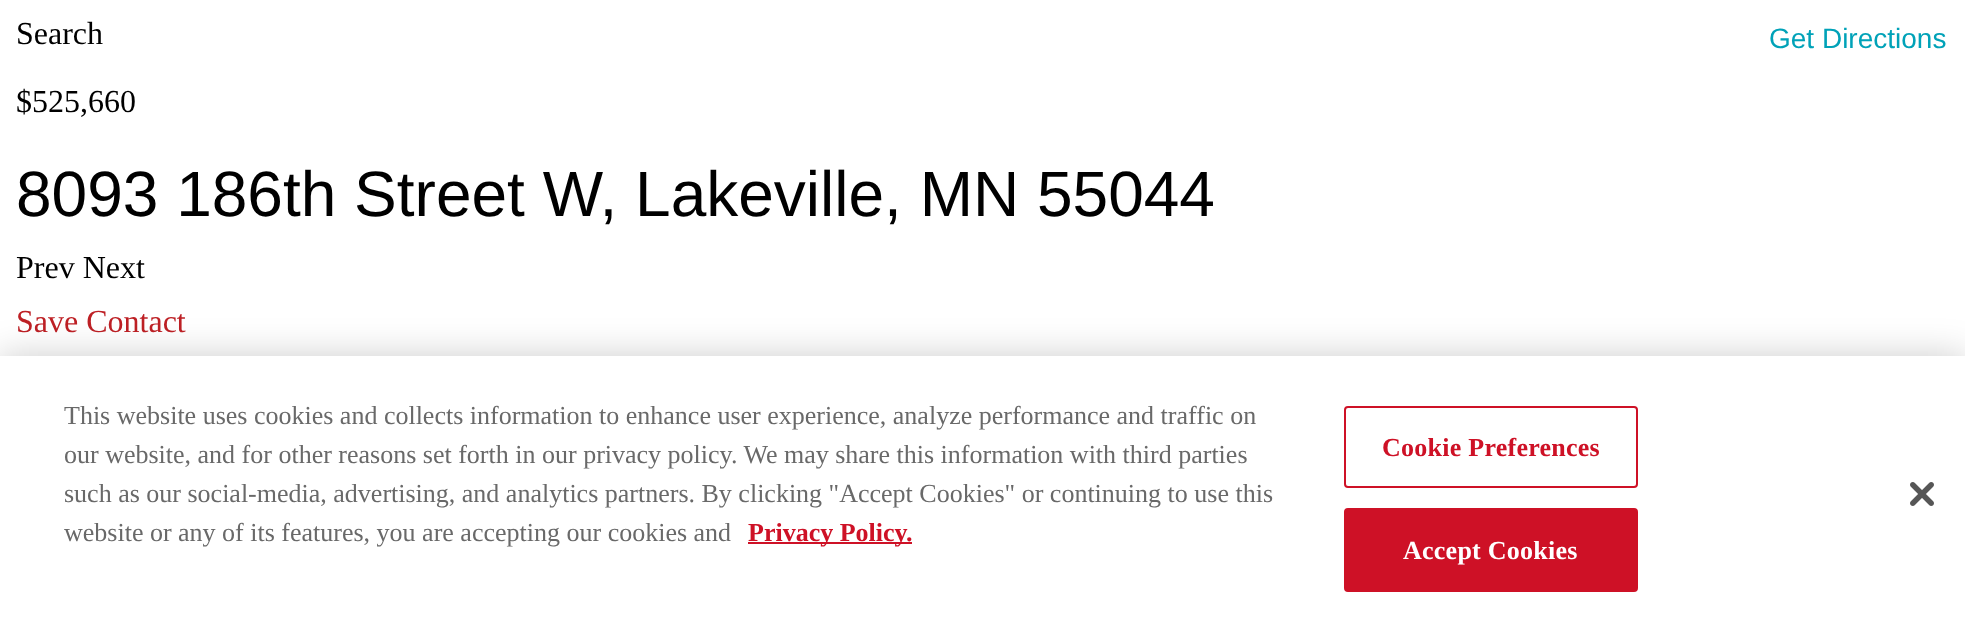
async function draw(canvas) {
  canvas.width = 1965
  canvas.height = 632
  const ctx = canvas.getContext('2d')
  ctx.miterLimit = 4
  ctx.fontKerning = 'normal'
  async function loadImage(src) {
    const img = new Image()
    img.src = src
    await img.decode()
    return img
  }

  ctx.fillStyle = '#fff'
  ctx.fillRect(0, 0, 1965, 632)
  ctx.font = '32px Liberation Serif'
  ctx.fillStyle = '#000'
  ctx.fillText('Search', 16, 44)
  ctx.fillText('$525,660', 16, 112)
  ctx.font = '64px Liberation Sans'
  ctx.fillText('8093 186th Street W, Lakeville, MN 55044', 16, 216)
  ctx.font = '32px Liberation Serif'
  ctx.fillText('Prev Next', 16, 278)
  ctx.fillStyle = '#be2025'
  ctx.fillText('Save Contact', 16, 332)
  ctx.font = '28px Liberation Sans'
  ctx.fillStyle = '#00a2b8'
  ctx.fillText('Get Directions', 1769, 48)
  ctx.fillStyle = '#00000033'
  ctx.filter = 'blur(18px)'
  ctx.beginPath()
  ctx.rect(0, 356, 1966, 276)
  ctx.fill()
  ctx.filter = 'none'
  ctx.fillStyle = '#fff'
  ctx.fillRect(0, 356, 1965, 276)
  ctx.font = '26px Liberation Serif'
  ctx.fillStyle = '#696969'
  ctx.fillText('This website uses cookies and collects information to enhance user experience, analyze performance and traffic on', 64, 424)
  ctx.fillText('our website, and for other reasons set forth in our privacy policy. We may share this information with third parties', 64, 463)
  ctx.fillText('such as our social-media, advertising, and analytics partners. By clicking "Accept Cookies" or continuing to use this', 64, 502)
  ctx.fillText('website or any of its features, you are accepting our cookies and', 64, 541)
  ctx.fillStyle = '#ce1126'
  ctx.fillRect(748, 542, 164, 2)
  ctx.font = 'bold 26px Liberation Serif'
  ctx.fillText('Privacy Policy.', 748, 541)
  ctx.beginPath()
  ctx.roundRect(1345, 407, 292, 80, 3)
  ctx.strokeStyle = '#ce1126'
  ctx.lineWidth = 2
  ctx.stroke()
  ctx.letterSpacing = '0.25px'
  ctx.fillText('Cookie Preferences', 1382, 456)
  ctx.beginPath()
  ctx.roundRect(1345, 509, 292, 82, 3)
  ctx.fill()
  ctx.stroke()
  ctx.fillStyle = '#fff'
  ctx.fillText('Accept Cookies', 1403, 559)
  ctx.drawImage(await loadImage('image0.png'), 1910, 482, 24, 24)
}

draw(document.querySelector('canvas'))
